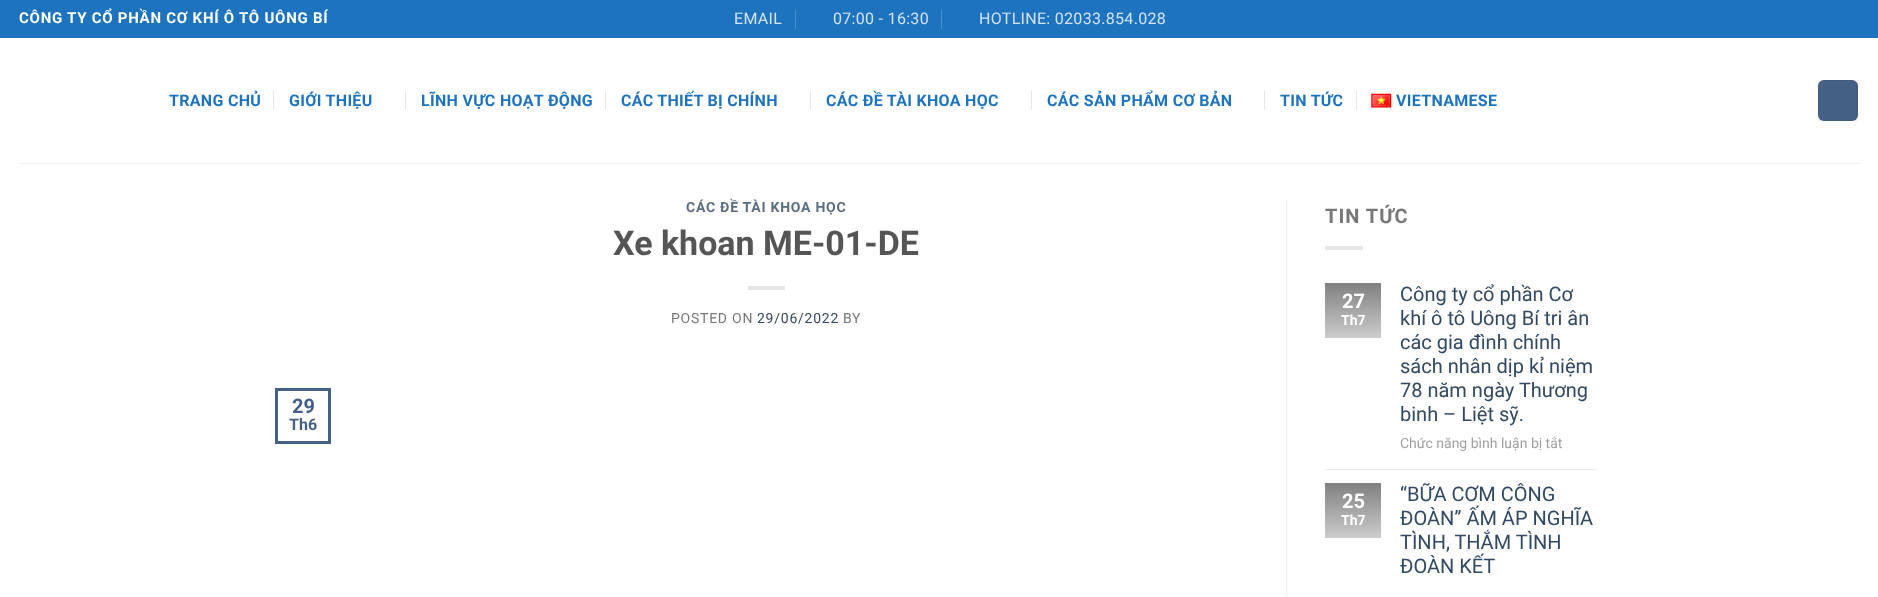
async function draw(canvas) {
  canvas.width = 1878
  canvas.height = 597
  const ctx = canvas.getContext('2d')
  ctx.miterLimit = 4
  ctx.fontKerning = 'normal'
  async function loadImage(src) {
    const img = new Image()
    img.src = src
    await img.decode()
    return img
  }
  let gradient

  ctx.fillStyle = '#fff'
  ctx.fillRect(0, 0, 1878, 597)
  ctx.fillStyle = '#1e73be'
  ctx.fillRect(0, 0, 1878, 38)
  ctx.letterSpacing = '0.75px'
  ctx.font = 'bold 15px Roboto'
  ctx.fillStyle = '#fff'
  ctx.fillText('CÔNG TY CỔ PHẦN CƠ KHÍ Ô TÔ UÔNG BÍ', 19, 23)
  ctx.letterSpacing = '0.3px'
  ctx.font = '16px Roboto'
  ctx.fillStyle = '#d2e3f2'
  ctx.fillText('EMAIL', 734, 24)
  ctx.fillStyle = '#4b8fcb'
  ctx.fillRect(795, 10, 1, 19)
  ctx.fillStyle = '#d2e3f2'
  ctx.fillText('07:00 - 16:30', 833, 24)
  ctx.fillStyle = '#4b8fcb'
  ctx.fillRect(941, 10, 1, 19)
  ctx.fillStyle = '#d2e3f2'
  ctx.fillText('HOTLINE: 02033.854.028', 979, 24)
  ctx.font = 'bold 16px Roboto'
  ctx.fillStyle = '#1e73be'
  ctx.fillText('TRANG CHỦ', 169, 106)
  ctx.fillStyle = '#e6e6e6'
  ctx.fillRect(273, 91, 1, 19)
  ctx.fillStyle = '#1e73be'
  ctx.fillText('GIỚI THIỆU', 289, 106)
  ctx.fillStyle = '#e6e6e6'
  ctx.fillRect(405, 91, 1, 19)
  ctx.fillStyle = '#1e73be'
  ctx.fillText('LĨNH VỰC HOẠT ĐỘNG', 421, 106)
  ctx.fillStyle = '#e6e6e6'
  ctx.fillRect(605, 91, 1, 19)
  ctx.fillStyle = '#1e73be'
  ctx.fillText('CÁC THIẾT BỊ CHÍNH', 621, 106)
  ctx.fillStyle = '#e6e6e6'
  ctx.fillRect(810, 91, 1, 19)
  ctx.fillStyle = '#1e73be'
  ctx.fillText('CÁC ĐỀ TÀI KHOA HỌC', 826, 106)
  ctx.fillStyle = '#e6e6e6'
  ctx.fillRect(1031, 91, 1, 19)
  ctx.fillStyle = '#1e73be'
  ctx.fillText('CÁC SẢN PHẨM CƠ BẢN', 1047, 106)
  ctx.fillStyle = '#e6e6e6'
  ctx.fillRect(1264, 91, 1, 19)
  ctx.fillStyle = '#1e73be'
  ctx.fillText('TIN TỨC', 1280, 106)
  ctx.fillStyle = '#e6e6e6'
  ctx.fillRect(1356, 91, 1, 19)
  ctx.drawImage(await loadImage('image0.png'), 1371, 93, 21, 15)
  ctx.fillStyle = '#1e73be'
  ctx.fillText('VIETNAMESE', 1396, 106)
  ctx.fillStyle = '#446084'
  ctx.beginPath()
  ctx.roundRect(1818, 80, 40, 41, 6)
  ctx.fill()
  ctx.strokeStyle = '#0000000d'
  ctx.strokeRect(1818.5, 80.5, 39, 40)
  ctx.fillStyle = '#f1f1f1'
  ctx.fillRect(19, 163, 1841, 1)
  ctx.letterSpacing = '0.75px'
  ctx.font = 'bold 14px Roboto'
  ctx.fillStyle = '#5c6d81'
  ctx.fillText('CÁC ĐỀ TÀI KHOA HỌC', 686, 212)
  ctx.letterSpacing = '0px'
  ctx.font = 'bold 34px Roboto'
  ctx.fillStyle = '#555'
  ctx.fillText('Xe khoan ME-01-DE', 613, 255)
  ctx.fillStyle = '#e6e6e6'
  ctx.fillRect(748, 286, 37, 4)
  ctx.letterSpacing = '0.75px'
  ctx.font = '14px Roboto'
  ctx.fillStyle = '#777'
  ctx.fillText('POSTED ON', 671, 323)
  ctx.fillStyle = '#334862'
  ctx.fillText('29/06/2022', 757, 323)
  ctx.fillStyle = '#777'
  ctx.fillText('BY', 843, 323)
  ctx.strokeStyle = '#446084'
  ctx.lineWidth = 3
  ctx.strokeRect(276.5, 389.5, 53, 53)
  ctx.letterSpacing = '0px'
  ctx.font = 'bold 20px Roboto'
  ctx.fillStyle = '#446084'
  ctx.fillText('29', 292, 413)
  ctx.font = 'bold 16px Roboto'
  ctx.fillText('Th6', 289, 430)
  ctx.fillStyle = '#ececec'
  ctx.fillRect(1286, 200, 1, 397)
  ctx.letterSpacing = '1px'
  ctx.font = 'bold 20px Roboto'
  ctx.fillStyle = '#777'
  ctx.fillText('TIN TỨC', 1325, 223)
  ctx.fillStyle = '#e6e6e6'
  ctx.fillRect(1325, 246, 38, 4)
  gradient = ctx.createLinearGradient(1353, 283, 1353, 338)
  gradient.addColorStop(0, '#808080')
  gradient.addColorStop(1, '#ccc')
  ctx.fillStyle = gradient
  ctx.fillRect(1325, 283, 56, 55)
  ctx.letterSpacing = '0px'
  ctx.fillStyle = '#fff'
  ctx.fillText('27', 1342, 308)
  ctx.font = 'bold 14px Roboto'
  ctx.fillText('Th7', 1341, 325)
  ctx.font = '20px Roboto'
  ctx.fillStyle = '#334862'
  ctx.fillText('Công ty cổ phần Cơ', 1400, 301)
  ctx.fillText('khí ô tô Uông Bí tri ân', 1400, 325)
  ctx.fillText('các gia đình chính', 1400, 349)
  ctx.fillText('sách nhân dịp kỉ niệm', 1400, 373)
  ctx.fillText('78 năm ngày Thương', 1400, 397)
  ctx.fillText('binh – Liệt sỹ.', 1400, 421)
  ctx.font = '14px Roboto'
  ctx.fillStyle = '#a0a0a0'
  ctx.fillText('Chức năng bình luận bị tắt', 1400, 448)
  ctx.fillStyle = '#ececec'
  ctx.fillRect(1325, 469, 271, 1)
  gradient = ctx.createLinearGradient(1353, 483, 1353, 538)
  gradient.addColorStop(0, '#808080')
  gradient.addColorStop(1, '#ccc')
  ctx.fillStyle = gradient
  ctx.fillRect(1325, 483, 56, 55)
  ctx.font = 'bold 20px Roboto'
  ctx.fillStyle = '#fff'
  ctx.fillText('25', 1342, 508)
  ctx.font = 'bold 14px Roboto'
  ctx.fillText('Th7', 1341, 525)
  ctx.font = '20px Roboto'
  ctx.fillStyle = '#334862'
  ctx.fillText('“BỮA CƠM CÔNG', 1400, 501)
  ctx.fillText('ĐOÀN” ẤM ÁP NGHĨA', 1400, 525)
  ctx.fillText('TÌNH, THẮM TÌNH', 1400, 549)
  ctx.fillText('ĐOÀN KẾT', 1400, 573)
}

draw(document.querySelector('canvas'))
